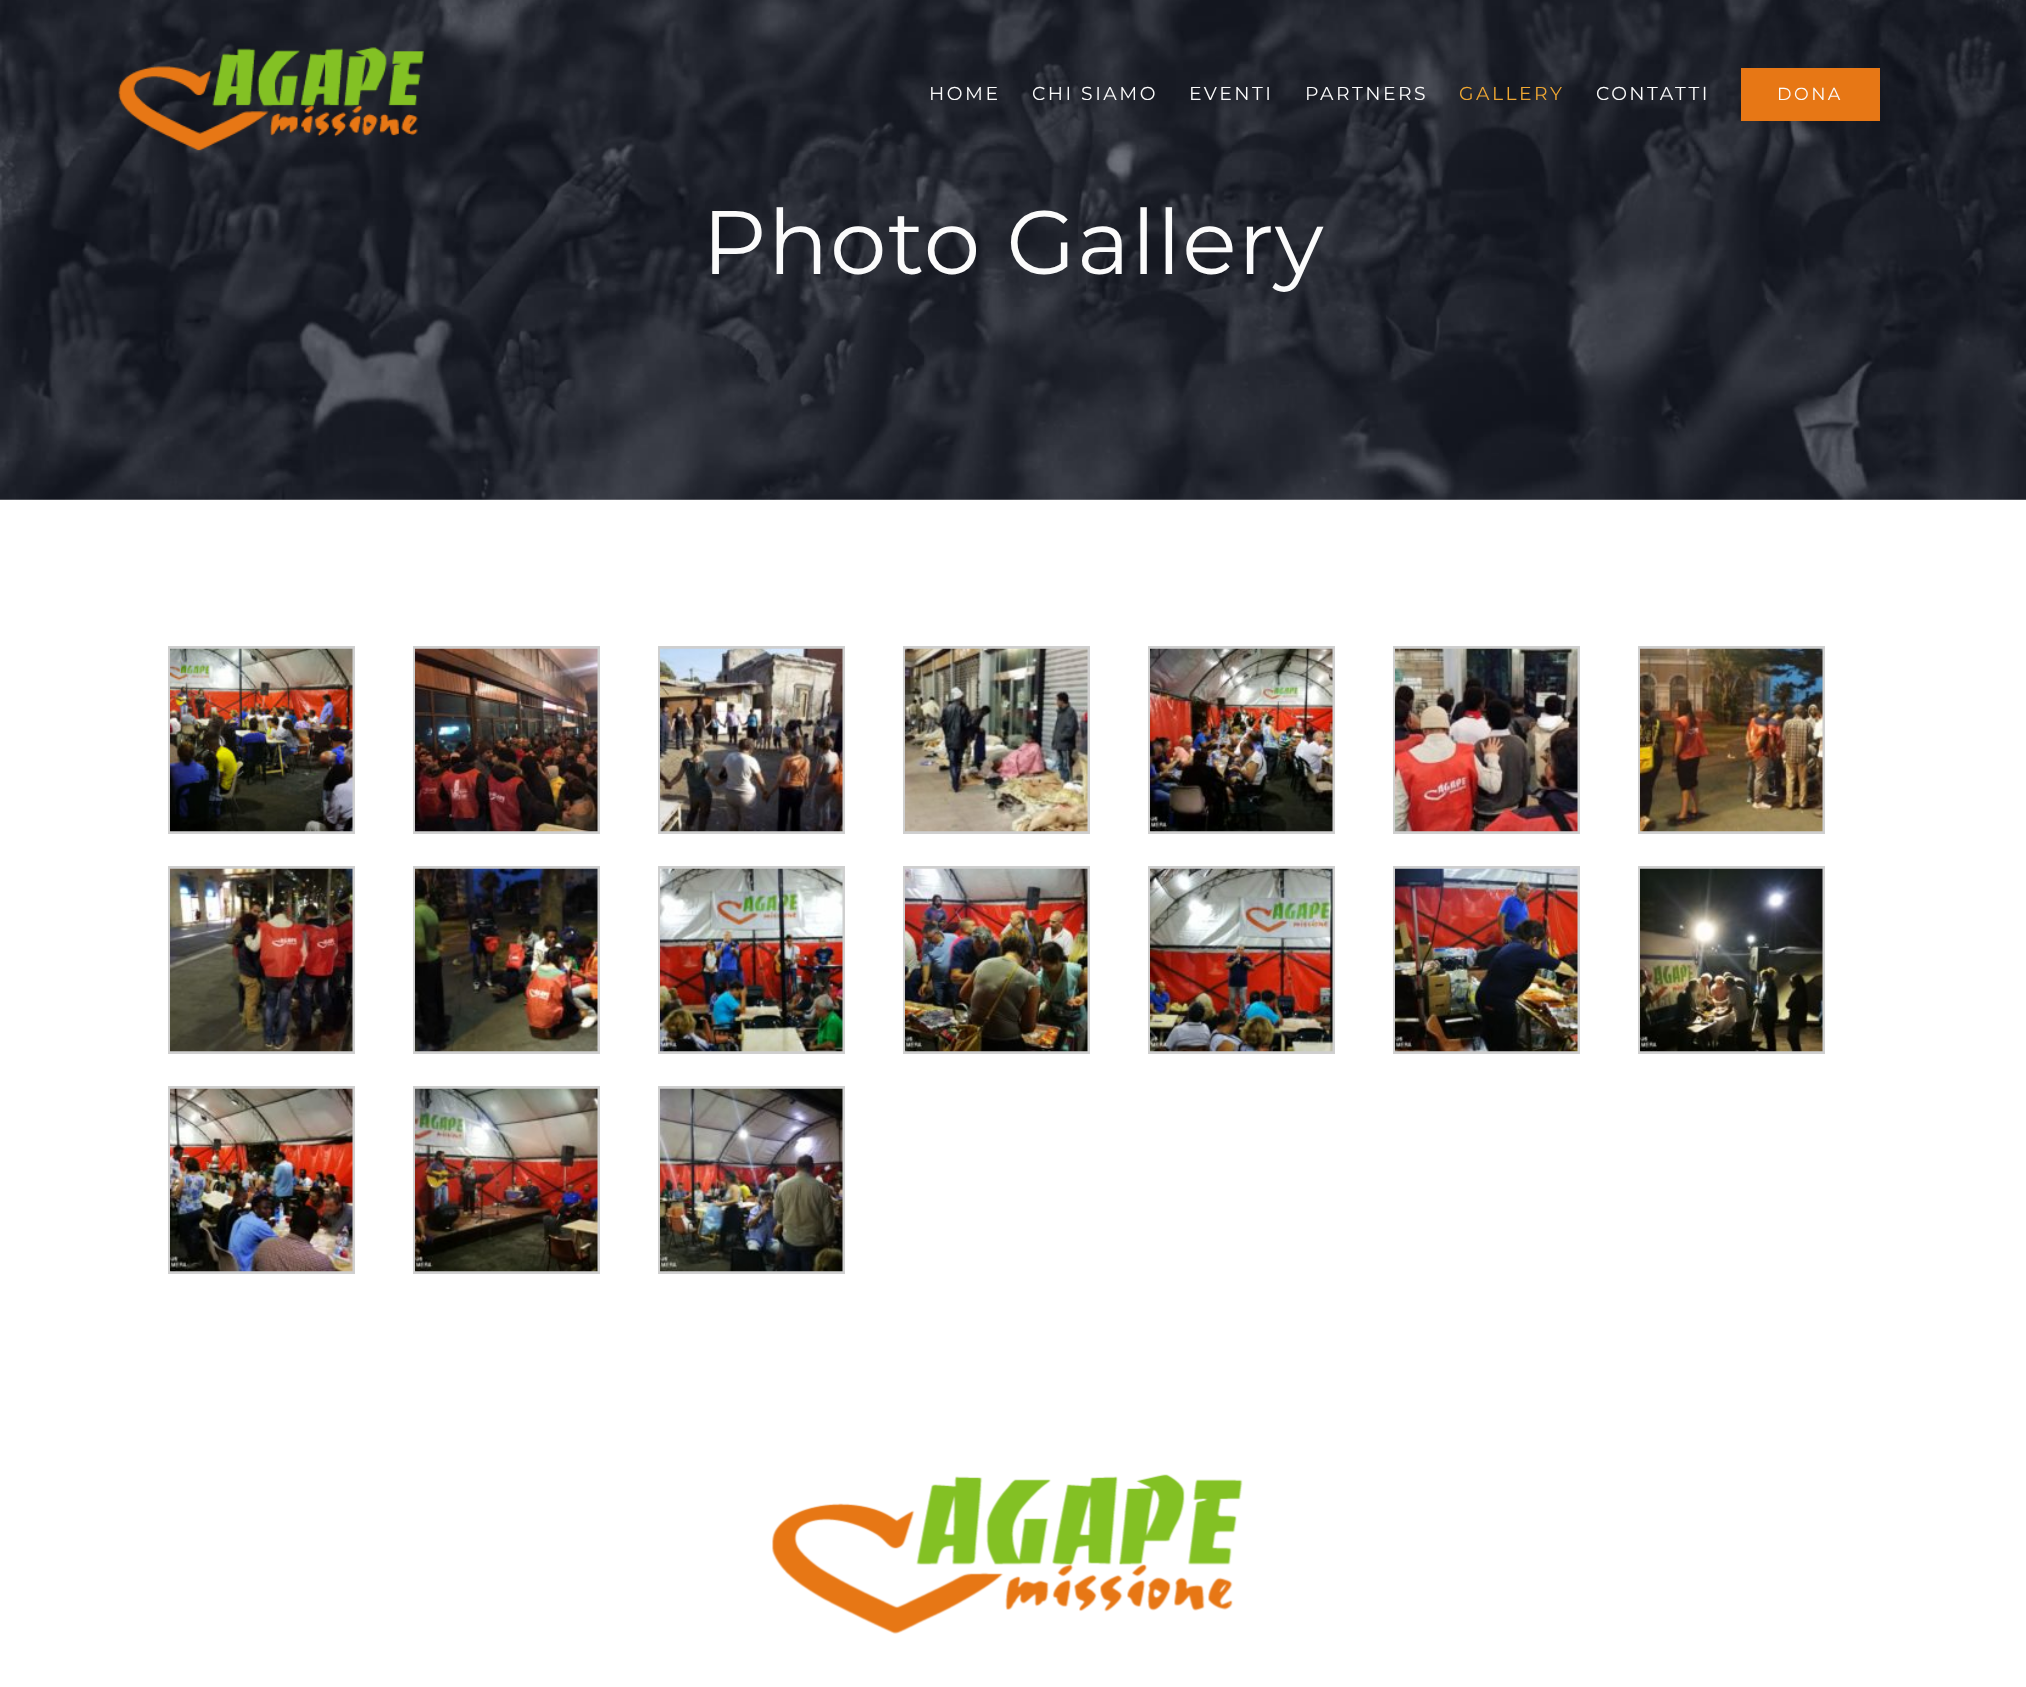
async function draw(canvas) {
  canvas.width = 2026
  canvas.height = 1687
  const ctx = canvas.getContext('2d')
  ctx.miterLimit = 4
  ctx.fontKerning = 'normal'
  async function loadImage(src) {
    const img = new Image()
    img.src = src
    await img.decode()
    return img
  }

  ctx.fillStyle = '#fff'
  ctx.fillRect(0, 0, 2026, 1687)
  ctx.drawImage(await loadImage('image1.png'), 0, 0, 2026, 500)
  ctx.drawImage(await loadImage('image0.png'), 118, 47, 306, 104)
  ctx.letterSpacing = '2.5px'
  ctx.font = '100 18.75px Montserrat'
  ctx.fillStyle = '#fbfbfb'
  ctx.fillText('HOME', 929, 100)
  ctx.fillText('CHI SIAMO', 1032, 100)
  ctx.fillText('EVENTI', 1189, 100)
  ctx.fillText('PARTNERS', 1305, 100)
  ctx.fillStyle = '#efa732'
  ctx.fillText('GALLERY', 1459, 100)
  ctx.fillStyle = '#fbfbfb'
  ctx.fillText('CONTATTI', 1596, 100)
  ctx.fillStyle = '#e77715'
  ctx.fillRect(1741, 68, 139, 53)
  ctx.font = '100 17.5px Montserrat'
  ctx.fillStyle = '#fbfbfb'
  ctx.fillText('DONA', 1777, 100)
  ctx.letterSpacing = '1.25px'
  ctx.font = '100 90px Montserrat'
  ctx.fillText('Photo Gallery', 702, 274)
  ctx.strokeStyle = '#cfcfcf'
  ctx.lineWidth = 3
  ctx.strokeRect(169.5, 647.5, 184, 185)
  ctx.drawImage(await loadImage('image2.png'), 170, 648, 183, 184)
  ctx.strokeRect(414.5, 647.5, 184, 185)
  ctx.drawImage(await loadImage('image3.png'), 415, 648, 183, 184)
  ctx.strokeRect(659.5, 647.5, 184, 185)
  ctx.drawImage(await loadImage('image4.png'), 660, 648, 183, 184)
  ctx.strokeRect(904.5, 647.5, 184, 185)
  ctx.drawImage(await loadImage('image5.png'), 905, 648, 183, 184)
  ctx.strokeRect(1149.5, 647.5, 184, 185)
  ctx.drawImage(await loadImage('image6.png'), 1150, 648, 183, 184)
  ctx.strokeRect(1394.5, 647.5, 184, 185)
  ctx.drawImage(await loadImage('image7.png'), 1395, 648, 183, 184)
  ctx.strokeRect(1639.5, 647.5, 184, 185)
  ctx.drawImage(await loadImage('image8.png'), 1640, 648, 183, 184)
  ctx.strokeRect(169.5, 867.5, 184, 185)
  ctx.drawImage(await loadImage('image9.png'), 170, 868, 183, 184)
  ctx.strokeRect(414.5, 867.5, 184, 185)
  ctx.drawImage(await loadImage('image10.png'), 415, 868, 183, 184)
  ctx.strokeRect(659.5, 867.5, 184, 185)
  ctx.drawImage(await loadImage('image11.png'), 660, 868, 183, 184)
  ctx.strokeRect(904.5, 867.5, 184, 185)
  ctx.drawImage(await loadImage('image12.png'), 905, 868, 183, 184)
  ctx.strokeRect(1149.5, 867.5, 184, 185)
  ctx.drawImage(await loadImage('image13.png'), 1150, 868, 183, 184)
  ctx.strokeRect(1394.5, 867.5, 184, 185)
  ctx.drawImage(await loadImage('image14.png'), 1395, 868, 183, 184)
  ctx.strokeRect(1639.5, 867.5, 184, 185)
  ctx.drawImage(await loadImage('image15.png'), 1640, 868, 183, 184)
  ctx.strokeRect(169.5, 1087.5, 184, 185)
  ctx.drawImage(await loadImage('image16.png'), 170, 1088, 183, 184)
  ctx.strokeRect(414.5, 1087.5, 184, 185)
  ctx.drawImage(await loadImage('image17.png'), 415, 1088, 183, 184)
  ctx.strokeRect(659.5, 1087.5, 184, 185)
  ctx.drawImage(await loadImage('image18.png'), 660, 1088, 183, 184)
  ctx.drawImage(await loadImage('image19.png'), 772, 1474, 471, 160)
}

draw(document.querySelector('canvas'))
